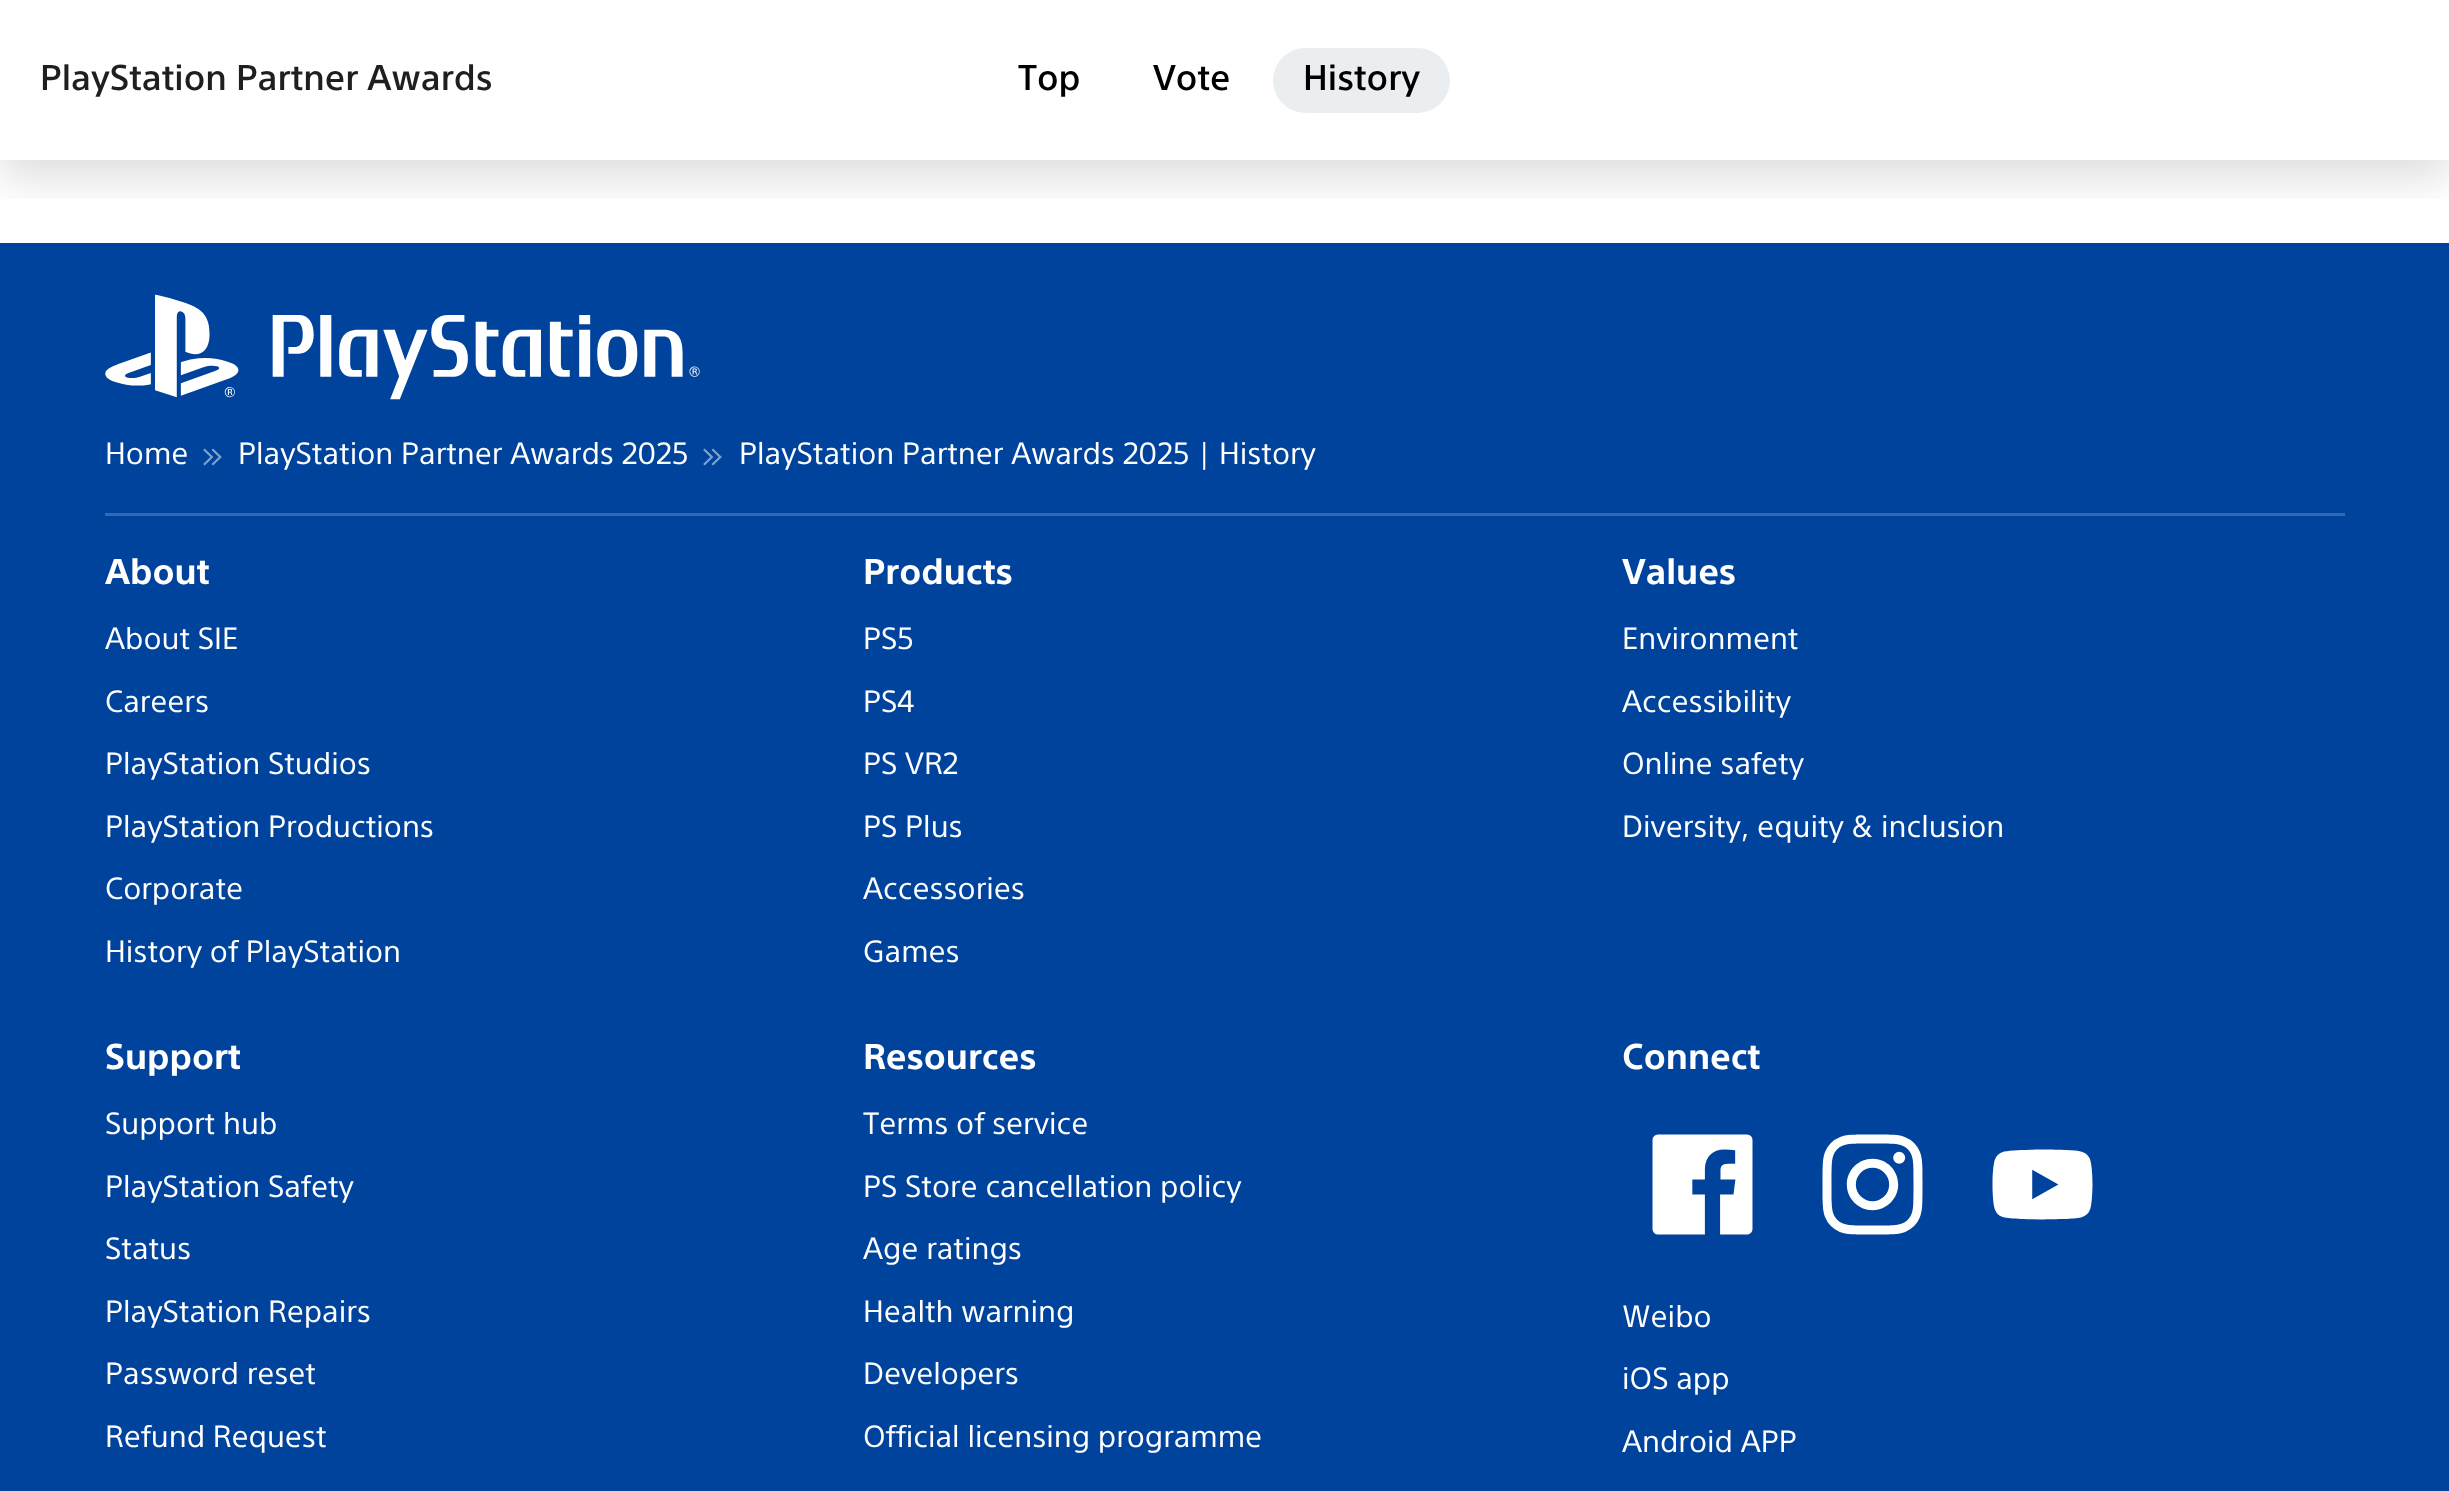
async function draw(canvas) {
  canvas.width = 2449
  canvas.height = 1491
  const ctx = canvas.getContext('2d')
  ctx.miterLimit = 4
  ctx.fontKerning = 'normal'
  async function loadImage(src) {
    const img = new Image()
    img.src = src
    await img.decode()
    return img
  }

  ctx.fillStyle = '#fff'
  ctx.fillRect(0, 0, 2449, 1491)
  ctx.save()
  ctx.beginPath()
  ctx.rect(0, 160, 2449, 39)
  ctx.clip()
  ctx.fillStyle = '#0000001f'
  ctx.filter = 'blur(20px)'
  ctx.beginPath()
  ctx.rect(0, 20, 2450, 160)
  ctx.fill()
  ctx.filter = 'none'
  ctx.restore()
  ctx.font = '500 35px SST'
  ctx.fillStyle = '#1f1f1f'
  ctx.fillText('PlayStation Partner Awards', 40, 90)
  ctx.fillStyle = '#000'
  ctx.fillText('Top', 1018, 90)
  ctx.fillText('Vote', 1153, 90)
  ctx.fillStyle = '#ebeef0'
  ctx.beginPath()
  ctx.roundRect(1273, 48, 177, 65, 32.5)
  ctx.fill()
  ctx.fillStyle = '#000'
  ctx.fillText('History', 1303, 90)
  ctx.fillStyle = '#00439c'
  ctx.fillRect(0, 243, 2449, 1248)
  ctx.drawImage(await loadImage('image0.png'), 105, 294, 595, 106)
  ctx.font = '30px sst'
  ctx.fillStyle = '#fff'
  ctx.fillText('Home', 105, 464)
  ctx.drawImage(await loadImage('image1.png'), 203, 448, 19, 18)
  ctx.fillText('PlayStation Partner Awards 2025', 238, 464)
  ctx.drawImage(await loadImage('image1.png'), 703, 448, 19, 18)
  ctx.fillText('PlayStation Partner Awards 2025 | History', 739, 464)
  ctx.fillStyle = '#3369b0'
  ctx.fillRect(105, 513, 2240, 3)
  ctx.font = 'bold 35px sst'
  ctx.fillStyle = '#fff'
  ctx.fillText('About', 105, 584)
  ctx.font = '30px sst'
  ctx.fillText('About SIE', 105, 649)
  ctx.fillText('Careers', 105, 712)
  ctx.fillText('PlayStation Studios', 105, 774)
  ctx.fillText('PlayStation Productions', 105, 837)
  ctx.fillText('Corporate', 105, 899)
  ctx.fillText('History of PlayStation', 105, 962)
  ctx.font = 'bold 35px sst'
  ctx.fillText('Products', 863, 584)
  ctx.font = '30px sst'
  ctx.fillText('PS5', 863, 649)
  ctx.fillText('PS4', 863, 712)
  ctx.fillText('PS VR2', 863, 774)
  ctx.fillText('PS Plus', 863, 837)
  ctx.fillText('Accessories', 863, 899)
  ctx.fillText('Games', 863, 962)
  ctx.font = 'bold 35px sst'
  ctx.fillText('Values', 1622, 584)
  ctx.font = '30px sst'
  ctx.fillText('Environment', 1622, 649)
  ctx.fillText('Accessibility', 1622, 712)
  ctx.fillText('Online safety', 1622, 774)
  ctx.fillText('Diversity, equity & inclusion', 1622, 837)
  ctx.font = 'bold 35px sst'
  ctx.fillText('Support', 105, 1069)
  ctx.font = '30px sst'
  ctx.fillText('Support hub', 105, 1134)
  ctx.fillText('PlayStation Safety', 105, 1197)
  ctx.fillText('Status', 105, 1259)
  ctx.fillText('PlayStation Repairs', 105, 1322)
  ctx.fillText('Password reset', 105, 1384)
  ctx.fillText('Refund Request', 105, 1447)
  ctx.font = 'bold 35px sst'
  ctx.fillText('Resources', 863, 1069)
  ctx.font = '30px sst'
  ctx.fillText('Terms of service', 863, 1134)
  ctx.fillText('PS Store cancellation policy', 863, 1197)
  ctx.fillText('Age ratings', 863, 1259)
  ctx.fillText('Health warning', 863, 1322)
  ctx.fillText('Developers', 863, 1384)
  ctx.fillText('Official licensing programme', 863, 1447)
  ctx.font = 'bold 35px sst'
  ctx.fillText('Connect', 1622, 1069)
  ctx.drawImage(await loadImage('image2.png'), 1652, 1134, 101, 101)
  ctx.drawImage(await loadImage('image3.png'), 1822, 1134, 101, 101)
  ctx.drawImage(await loadImage('image4.png'), 1992, 1149, 101, 71)
  ctx.font = '30px sst'
  ctx.fillText('Weibo', 1622, 1327)
  ctx.fillText('iOS app', 1622, 1389)
  ctx.fillText('Android APP', 1622, 1452)
}

draw(document.querySelector('canvas'))
